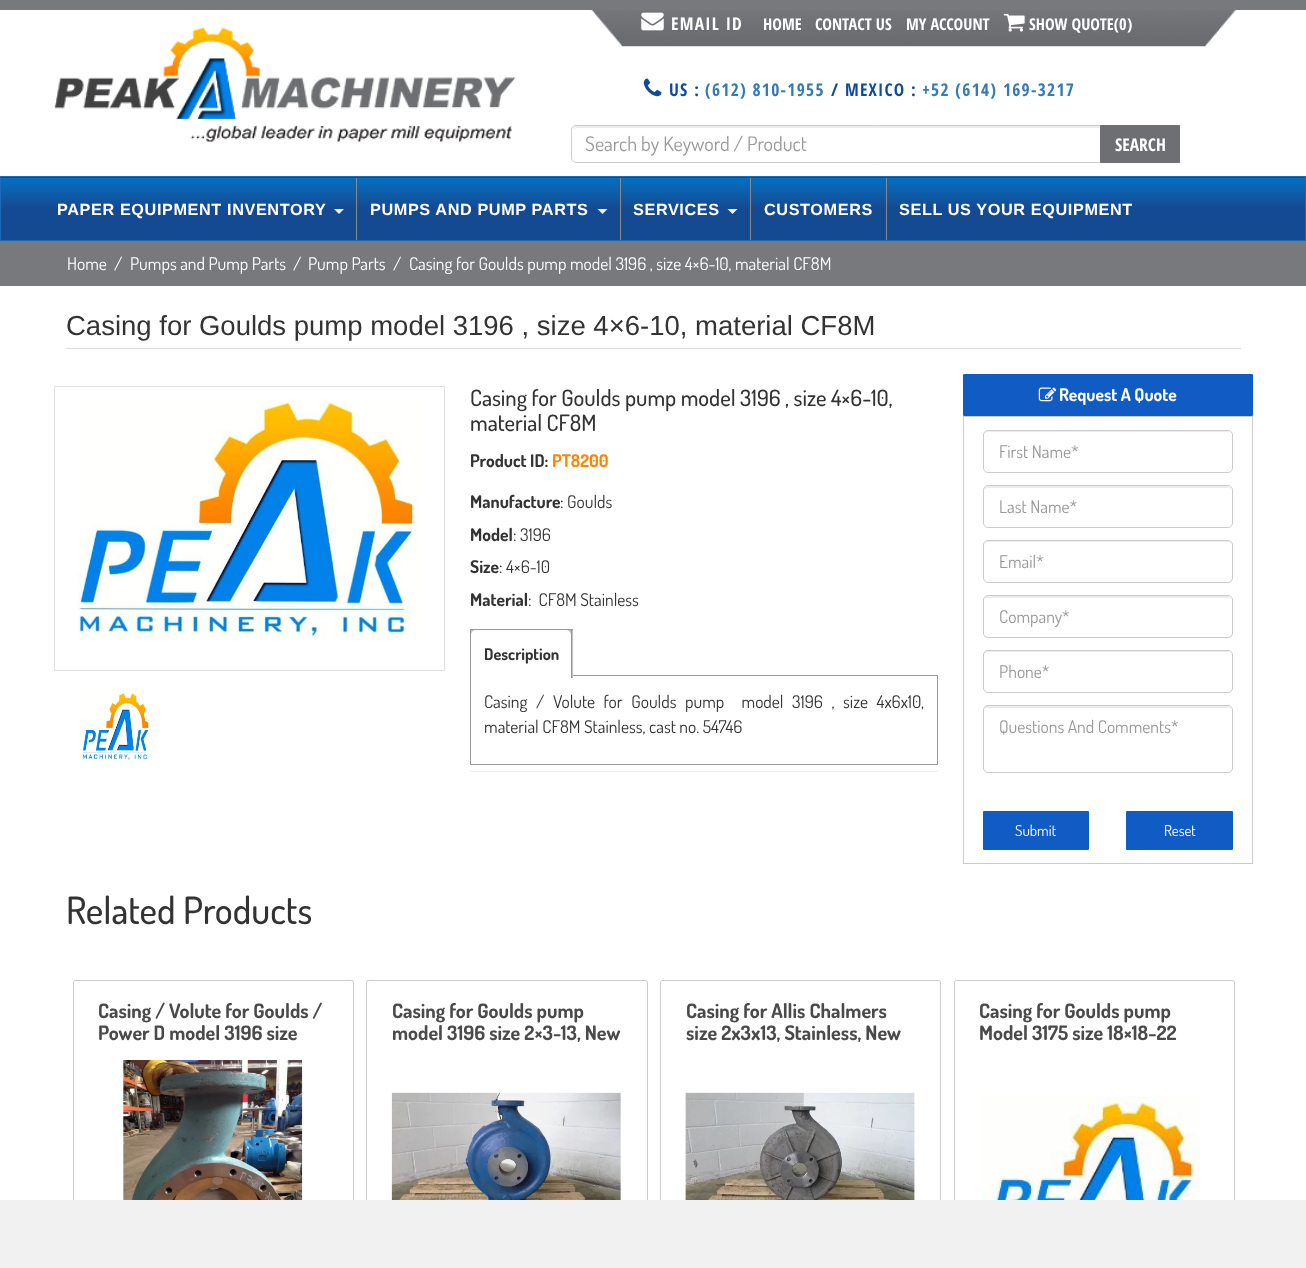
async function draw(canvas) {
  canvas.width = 1306
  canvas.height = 1268
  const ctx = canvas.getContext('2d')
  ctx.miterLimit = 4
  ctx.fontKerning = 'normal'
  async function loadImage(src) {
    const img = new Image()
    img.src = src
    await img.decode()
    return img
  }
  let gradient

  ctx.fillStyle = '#fff'
  ctx.fillRect(0, 0, 1306, 1268)
  ctx.fillStyle = '#77797c'
  ctx.fillRect(0, 0, 1306, 10)
  ctx.drawImage(await loadImage('image0.png'), 54, 27, 462, 115)
  ctx.drawImage(await loadImage('image1.png'), 591, 10, 646, 37)
  ctx.drawImage(await loadImage('image2.png'), 641, 12, 23, 19)
  ctx.letterSpacing = '1.25px'
  ctx.font = 'bold 17.5px Open Sans Condensed'
  ctx.fillStyle = '#fff'
  ctx.fillText('EMAIL ID', 671, 30)
  ctx.letterSpacing = '0px'
  ctx.font = 'bold 16.25px Open Sans Condensed'
  ctx.fillText('HOME', 763, 30)
  ctx.fillText('CONTACT US', 815, 30)
  ctx.fillText('MY ACCOUNT', 906, 30)
  ctx.drawImage(await loadImage('image3.png'), 1003, 13, 22, 19)
  ctx.fillText('SHOW QUOTE(', 1029, 30)
  ctx.letterSpacing = '1.25px'
  ctx.fillText('0', 1119, 30)
  ctx.letterSpacing = '0px'
  ctx.fillText(')', 1127, 30)
  ctx.drawImage(await loadImage('image4.png'), 643, 78, 19, 19)
  ctx.letterSpacing = '1.25px'
  ctx.font = 'bold 17.5px Open Sans Condensed'
  ctx.fillStyle = '#0e4c99'
  ctx.fillText('US :', 669, 96)
  ctx.fillStyle = '#337ab7'
  ctx.fillText('(612) 810-1955', 705, 96)
  ctx.fillStyle = '#0e4c99'
  ctx.fillText('/ MEXICO :', 831, 96)
  ctx.fillStyle = '#337ab7'
  ctx.fillText('+52 (614) 169-3217', 922, 96)
  ctx.fillStyle = '#ececec'
  ctx.beginPath()
  ctx.moveTo(576, 128)
  ctx.lineTo(1175, 128)
  ctx.bezierCurveTo(1177, 128, 1179, 129, 1179, 131)
  ctx.lineTo(1179, 130)
  ctx.bezierCurveTo(1179, 128, 1177, 126, 1175, 126)
  ctx.lineTo(577, 126)
  ctx.bezierCurveTo(575, 126, 574, 127, 573, 129)
  ctx.closePath()
  ctx.fill()
  ctx.beginPath()
  ctx.roundRect(571.5, 125.5, 608, 37, 4.5)
  ctx.strokeStyle = '#ccc'
  ctx.stroke()
  ctx.letterSpacing = '0px'
  ctx.font = '20px Dosis'
  ctx.fillStyle = '#999'
  ctx.fillText('Search by Keyword / Product', 585, 151)
  ctx.fillStyle = '#6e6f73'
  ctx.beginPath()
  ctx.roundRect(1100, 125, 80, 38, 1)
  ctx.fill()
  ctx.font = 'bold 17.5px Open Sans Condensed'
  ctx.fillStyle = '#fff'
  ctx.fillText('SEARCH', 1115, 151)
  gradient = ctx.createLinearGradient(653, 115, 653, 178)
  gradient.addColorStop(0, '#0571c2')
  gradient.addColorStop(0.5, '#144a92')
  ctx.fillStyle = gradient
  ctx.fillRect(0, 177, 1306, 1)
  gradient = ctx.createLinearGradient(653, 177, 653, 240)
  gradient.addColorStop(0, '#0571c2')
  gradient.addColorStop(0.5, '#144a92')
  ctx.fillStyle = gradient
  ctx.fillRect(1, 178, 1304, 62)
  ctx.strokeStyle = '#1e69ba'
  ctx.strokeRect(0.5, 176.5, 1305, 64)
  ctx.fillStyle = '#898989'
  ctx.fillRect(356, 178, 1, 62)
  ctx.letterSpacing = '0.6px'
  ctx.font = 'bold 16.25px Liberation Sans'
  ctx.fillStyle = '#fff'
  ctx.fillText('PAPER EQUIPMENT INVENTORY', 57, 215)
  ctx.fillStyle = '#eee'
  ctx.beginPath()
  ctx.moveTo(334, 209)
  ctx.lineTo(344, 209)
  ctx.lineTo(339, 214)
  ctx.closePath()
  ctx.fill()
  ctx.fillStyle = '#898989'
  ctx.fillRect(620, 178, 1, 62)
  ctx.fillStyle = '#fff'
  ctx.fillText('PUMPS AND PUMP PARTS', 370, 215)
  ctx.fillStyle = '#eee'
  ctx.beginPath()
  ctx.moveTo(597.5, 209)
  ctx.lineTo(607.5, 209)
  ctx.lineTo(602.5, 214)
  ctx.closePath()
  ctx.fill()
  ctx.fillStyle = '#898989'
  ctx.fillRect(750, 178, 1, 62)
  ctx.fillStyle = '#fff'
  ctx.fillText('SERVICES', 633, 215)
  ctx.fillStyle = '#eee'
  ctx.beginPath()
  ctx.moveTo(727.5, 209)
  ctx.lineTo(737.5, 209)
  ctx.lineTo(732.5, 214)
  ctx.closePath()
  ctx.fill()
  ctx.fillStyle = '#898989'
  ctx.fillRect(886, 178, 1, 62)
  ctx.fillStyle = '#fff'
  ctx.fillText('CUSTOMERS', 764, 215)
  ctx.fillText('SELL US YOUR EQUIPMENT', 899, 215)
  ctx.fillStyle = '#77797c'
  ctx.fillRect(0, 241, 1306, 45)
  ctx.letterSpacing = '0px'
  ctx.font = '17.5px Dosis'
  ctx.fillStyle = '#fff'
  ctx.fillText('Home', 67, 270)
  ctx.fillText('/', 114, 270)
  ctx.fillText('Pumps and Pump Parts', 130, 270)
  ctx.fillText('/', 293, 270)
  ctx.fillText('Pump Parts', 308, 270)
  ctx.fillText('/', 393, 270)
  ctx.fillText('Casing for Goulds pump model 3196 , size 4×6-10, material CF8M', 409, 270)
  ctx.fillStyle = '#ddd'
  ctx.fillRect(66, 348, 1175, 1)
  ctx.font = '27.5px Liberation Sans'
  ctx.fillStyle = '#333'
  ctx.fillText('Casing for Goulds pump model 3196 , size 4×6-10, material CF8M', 66, 335)
  ctx.strokeStyle = '#e1e1e1'
  ctx.strokeRect(54.5, 386.5, 390, 284)
  ctx.drawImage(await loadImage('image5.png'), 77, 400, 344, 240)
  ctx.drawImage(await loadImage('image6.png'), 82, 692, 68, 69)
  ctx.font = '500 22.5px Dosis'
  ctx.fillText('Casing for Goulds pump model 3196 , size 4×6-10,', 470, 406)
  ctx.fillText('material CF8M', 470, 431)
  ctx.font = 'bold 17.5px Dosis'
  ctx.fillText('Product ID:', 470, 467)
  ctx.fillStyle = '#fe8503'
  ctx.fillText('PT8200', 552, 467)
  ctx.fillStyle = '#333'
  ctx.fillText('Manufacture', 470, 508)
  ctx.font = '17.5px Dosis'
  ctx.fillText(': Goulds', 560, 508)
  ctx.font = 'bold 17.5px Dosis'
  ctx.fillText('Model', 470, 541)
  ctx.font = '17.5px Dosis'
  ctx.fillText(': 3196', 513, 541)
  ctx.font = 'bold 17.5px Dosis'
  ctx.fillText('Size', 470, 573)
  ctx.font = '17.5px Dosis'
  ctx.fillText(': 4×6-10', 499, 573)
  ctx.font = 'bold 17.5px Dosis'
  ctx.fillText('Material', 470, 606)
  ctx.font = '17.5px Dosis'
  ctx.fillText(':  CF8M Stainless', 528, 606)
  ctx.strokeStyle = '#999'
  ctx.strokeRect(470.5, 675.5, 467, 89)
  ctx.fillStyle = '#bfbfbf'
  ctx.fillRect(471, 630, 102, 48)
  ctx.fillStyle = '#999'
  ctx.fillRect(470, 629, 103, 1)
  ctx.fillRect(571, 629, 1, 49)
  ctx.fillRect(470, 629, 1, 49)
  ctx.fillStyle = '#fff'
  ctx.beginPath()
  ctx.roundRect(471, 630, 100, 48, [5, 5, 0, 0])
  ctx.fill()
  ctx.font = 'bold 16.25px Dosis'
  ctx.fillStyle = '#333'
  ctx.fillText('Description', 484, 660)
  ctx.wordSpacing = '5.1px'
  ctx.font = '17.5px Dosis'
  ctx.fillText('Casing / Volute for Goulds pump  model 3196 , size 4x6x10,', 484, 708)
  ctx.wordSpacing = '0px'
  ctx.fillText('material CF8M Stainless, cast no. 54746', 484, 733)
  ctx.fillStyle = '#eee'
  ctx.fillRect(470, 771, 468, 1)
  ctx.fillStyle = '#115cc4'
  ctx.beginPath()
  ctx.roundRect(963, 374, 290, 42, 1)
  ctx.fill()
  ctx.drawImage(await loadImage('image7.png'), 1038, 387, 19, 15)
  ctx.font = 'bold 17.5px Dosis'
  ctx.fillStyle = '#fff'
  ctx.fillText('Request A Quote', 1059, 401)
  ctx.strokeStyle = '#ccc'
  ctx.strokeRect(963.5, 416.5, 289, 447)
  ctx.fillStyle = '#ececec'
  ctx.beginPath()
  ctx.moveTo(988, 432)
  ctx.lineTo(1228, 432)
  ctx.bezierCurveTo(1230, 432, 1231, 434, 1231, 436)
  ctx.lineTo(1231, 435)
  ctx.bezierCurveTo(1231, 433, 1229, 431, 1227, 431)
  ctx.lineTo(988, 431)
  ctx.bezierCurveTo(986, 431, 984, 433, 984, 435)
  ctx.lineTo(984, 436)
  ctx.bezierCurveTo(984, 434, 985, 432, 988, 432)
  ctx.closePath()
  ctx.fill()
  ctx.beginPath()
  ctx.roundRect(983.5, 430.5, 249, 42, 4.5)
  ctx.stroke()
  ctx.font = '17.5px Dosis'
  ctx.fillStyle = '#999'
  ctx.fillText('First Name*', 999, 458)
  ctx.fillStyle = '#ececec'
  ctx.beginPath()
  ctx.moveTo(988, 488)
  ctx.lineTo(1229, 488)
  ctx.lineTo(1231, 489)
  ctx.lineTo(1231, 491)
  ctx.lineTo(1231, 490)
  ctx.bezierCurveTo(1231, 488, 1229, 486, 1227, 486)
  ctx.lineTo(988, 486)
  ctx.bezierCurveTo(986, 486, 984, 488, 984, 490)
  ctx.lineTo(984, 491)
  ctx.bezierCurveTo(984, 489, 985, 488, 988, 488)
  ctx.closePath()
  ctx.fill()
  ctx.beginPath()
  ctx.roundRect(983.5, 485.5, 249, 42, 4.5)
  ctx.stroke()
  ctx.fillStyle = '#999'
  ctx.fillText('Last Name*', 999, 513)
  ctx.fillStyle = '#ececec'
  ctx.beginPath()
  ctx.moveTo(988, 542)
  ctx.lineTo(1228, 542)
  ctx.bezierCurveTo(1230, 542, 1231, 544, 1231, 546)
  ctx.lineTo(1231, 545)
  ctx.bezierCurveTo(1231, 543, 1229, 541, 1227, 541)
  ctx.lineTo(988, 541)
  ctx.bezierCurveTo(986, 541, 984, 543, 984, 545)
  ctx.lineTo(984, 546)
  ctx.bezierCurveTo(984, 544, 985, 542, 988, 542)
  ctx.closePath()
  ctx.fill()
  ctx.beginPath()
  ctx.roundRect(983.5, 540.5, 249, 42, 4.5)
  ctx.stroke()
  ctx.fillStyle = '#999'
  ctx.fillText('Email*', 999, 568)
  ctx.fillStyle = '#ececec'
  ctx.beginPath()
  ctx.moveTo(988, 598)
  ctx.lineTo(1229, 598)
  ctx.lineTo(1231, 599)
  ctx.lineTo(1231, 601)
  ctx.lineTo(1231, 600)
  ctx.bezierCurveTo(1231, 598, 1229, 596, 1227, 596)
  ctx.lineTo(988, 596)
  ctx.bezierCurveTo(986, 596, 984, 598, 984, 600)
  ctx.lineTo(984, 601)
  ctx.bezierCurveTo(984, 599, 985, 598, 988, 598)
  ctx.closePath()
  ctx.fill()
  ctx.beginPath()
  ctx.roundRect(983.5, 595.5, 249, 42, 4.5)
  ctx.stroke()
  ctx.fillStyle = '#999'
  ctx.fillText('Company*', 999, 623)
  ctx.fillStyle = '#ececec'
  ctx.beginPath()
  ctx.moveTo(988, 652)
  ctx.lineTo(1228, 652)
  ctx.bezierCurveTo(1230, 652, 1231, 654, 1231, 656)
  ctx.lineTo(1231, 655)
  ctx.bezierCurveTo(1231, 653, 1229, 651, 1227, 651)
  ctx.lineTo(988, 651)
  ctx.bezierCurveTo(986, 651, 984, 653, 984, 655)
  ctx.lineTo(984, 656)
  ctx.bezierCurveTo(984, 654, 985, 652, 988, 652)
  ctx.closePath()
  ctx.fill()
  ctx.beginPath()
  ctx.roundRect(983.5, 650.5, 249, 42, 4.5)
  ctx.stroke()
  ctx.fillStyle = '#999'
  ctx.fillText('Phone*', 999, 678)
  ctx.fillStyle = '#ececec'
  ctx.beginPath()
  ctx.moveTo(988, 708)
  ctx.lineTo(1229, 708)
  ctx.lineTo(1231, 709)
  ctx.lineTo(1231, 711)
  ctx.lineTo(1231, 710)
  ctx.bezierCurveTo(1231, 708, 1229, 706, 1227, 706)
  ctx.lineTo(988, 706)
  ctx.bezierCurveTo(986, 706, 984, 708, 984, 710)
  ctx.lineTo(984, 711)
  ctx.bezierCurveTo(984, 709, 985, 708, 988, 708)
  ctx.closePath()
  ctx.fill()
  ctx.beginPath()
  ctx.roundRect(983.5, 705.5, 249, 67, 4.5)
  ctx.stroke()
  ctx.fillStyle = '#999'
  ctx.fillText('Questions And Comments*', 999, 733)
  ctx.fillStyle = '#115cc4'
  ctx.beginPath()
  ctx.roundRect(983, 811, 106, 39, 1)
  ctx.fill()
  ctx.font = '15px Dosis'
  ctx.fillStyle = '#fff'
  ctx.fillText('Submit', 1015, 836)
  ctx.fillStyle = '#115cc4'
  ctx.beginPath()
  ctx.roundRect(1126, 811, 107, 39, 1)
  ctx.fill()
  ctx.fillStyle = '#fff'
  ctx.fillText('Reset', 1164, 836)
  ctx.font = '500 37.5px Dosis'
  ctx.fillStyle = '#333'
  ctx.fillText('Related Products', 66, 924)
  ctx.beginPath()
  ctx.roundRect(73.5, 980.5, 280, 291, 2)
  ctx.stroke()
  ctx.font = 'bold 20px Dosis'
  ctx.fillStyle = '#4a4a4a'
  ctx.fillText('Casing / Volute for Goulds /', 98, 1018)
  ctx.fillText('Power D model 3196 size', 98, 1040)
  ctx.drawImage(await loadImage('image8.png'), 123, 1060, 180, 140)
  ctx.beginPath()
  ctx.roundRect(366.5, 980.5, 281, 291, 2)
  ctx.stroke()
  ctx.save()
  ctx.beginPath()
  ctx.rect(393, 1000, 228, 45)
  ctx.clip()
  ctx.fillText('Casing for Goulds pump', 392, 1018)
  ctx.fillText('model 3196 size 2×3-13, New', 392, 1040)
  ctx.restore()
  ctx.drawImage(await loadImage('image9.png'), 391, 1092, 230, 108)
  ctx.beginPath()
  ctx.roundRect(660.5, 980.5, 280, 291, 2)
  ctx.stroke()
  ctx.fillText('Casing for Allis Chalmers', 686, 1018)
  ctx.fillText('size 2x3x13, Stainless, New', 686, 1040)
  ctx.drawImage(await loadImage('image10.png'), 685, 1092, 230, 108)
  ctx.beginPath()
  ctx.roundRect(954.5, 980.5, 280, 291, 2)
  ctx.stroke()
  ctx.fillText('Casing for Goulds pump', 979, 1018)
  ctx.fillText('Model 3175 size 18×18-22', 979, 1040)
  ctx.drawImage(await loadImage('image11.png'), 979, 1096, 221, 104)
  ctx.fillStyle = '#f1f1f1'
  ctx.fillRect(0, 1200, 1306, 68)
}

draw(document.querySelector('canvas'))
